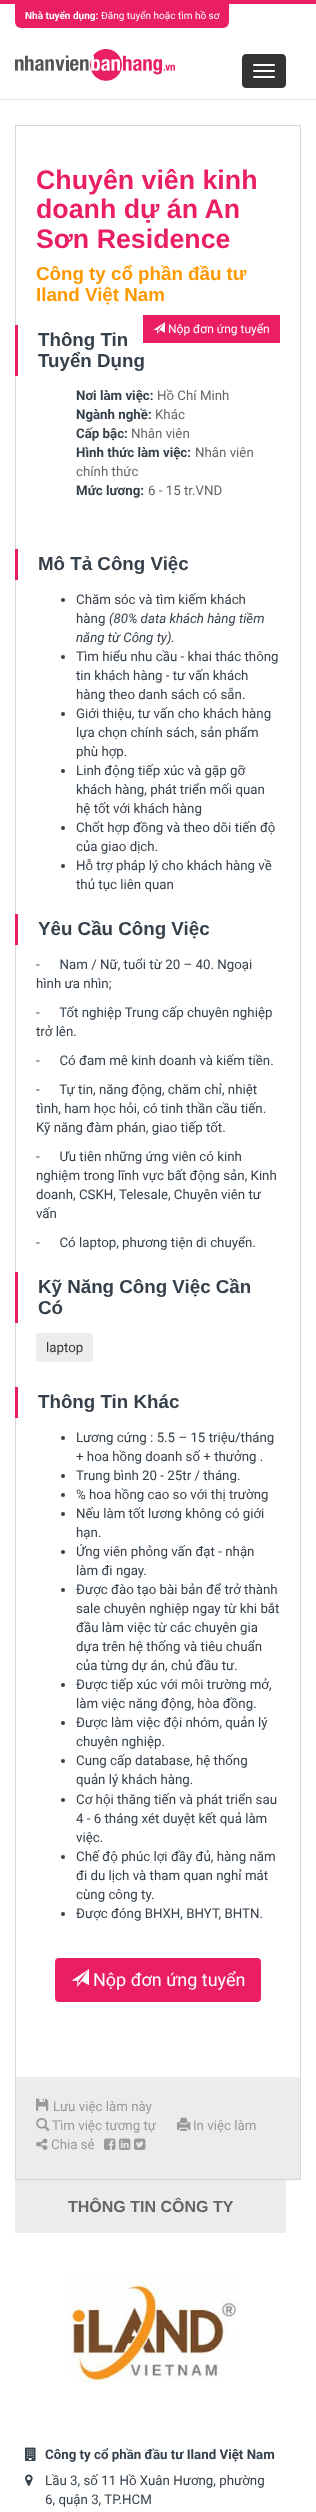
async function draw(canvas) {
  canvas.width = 316
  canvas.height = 2512
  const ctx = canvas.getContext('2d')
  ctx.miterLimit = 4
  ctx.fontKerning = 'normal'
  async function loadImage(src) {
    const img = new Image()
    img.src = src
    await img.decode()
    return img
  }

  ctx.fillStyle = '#fff'
  ctx.fillRect(0, 0, 316, 2512)
  ctx.fillStyle = '#e91e63'
  ctx.fillRect(0, 0, 316, 4)
  ctx.fillStyle = '#e7e7e7'
  ctx.fillRect(0, 99, 316, 1)
  ctx.fillStyle = '#e91e63'
  ctx.beginPath()
  ctx.roundRect(15, 4, 214, 24, [0, 0, 6, 6])
  ctx.fill()
  ctx.font = 'bold 10px Roboto'
  ctx.fillStyle = '#fff'
  ctx.fillText('Nhà tuyển dụng:', 25, 19)
  ctx.font = '10px Roboto'
  ctx.fillText('Đăng tuyển hoặc tìm hồ sơ', 101, 19)
  ctx.drawImage(await loadImage('image0.png'), 15, 49, 160, 32)
  ctx.fillStyle = '#333'
  ctx.beginPath()
  ctx.roundRect(242.5, 54.5, 43, 33, 3.5)
  ctx.fill()
  ctx.strokeStyle = '#333'
  ctx.stroke()
  ctx.fillStyle = '#fff'
  ctx.beginPath()
  ctx.roundRect(253, 64, 22, 2, 1)
  ctx.fill()
  ctx.beginPath()
  ctx.roundRect(253, 70, 22, 2, 1)
  ctx.fill()
  ctx.beginPath()
  ctx.roundRect(253, 76, 22, 2, 1)
  ctx.fill()
  ctx.strokeStyle = '#d7d7d7'
  ctx.strokeRect(15.5, 125.5, 285, 2054)
  ctx.font = 'bold 26.75px Liberation Sans'
  ctx.fillStyle = '#e91e63'
  ctx.fillText('Chuyên viên kinh', 36, 189)
  ctx.fillText('doanh dự án An', 36, 218)
  ctx.fillText('Sơn Residence', 36, 248)
  ctx.font = 'bold 18.75px Liberation Sans'
  ctx.fillStyle = '#f90'
  ctx.fillText('Công ty cổ phần đầu tư', 36, 280)
  ctx.fillText('Iland Việt Nam', 36, 301)
  ctx.fillStyle = '#e91e63'
  ctx.fillRect(143, 315, 137, 28)
  ctx.drawImage(await loadImage('image1.png'), 153, 322, 12, 12)
  ctx.font = '12px Roboto'
  ctx.fillStyle = '#fff'
  ctx.fillText('Nộp đơn ứng tuyển', 168, 333)
  ctx.fillStyle = '#e91e63'
  ctx.fillRect(15, 325, 3, 51)
  ctx.font = 'bold 18.75px Liberation Sans'
  ctx.fillStyle = '#36404b'
  ctx.fillText('Thông Tin', 38, 346)
  ctx.fillText('Tuyển Dụng', 38, 367)
  ctx.font = 'bold 13.3px Roboto'
  ctx.fillText('Nơi làm việc:', 76, 400)
  ctx.font = '13.3px Roboto'
  ctx.fillStyle = '#666'
  ctx.fillText('Hồ Chí Minh', 157, 400)
  ctx.font = 'bold 13.3px Roboto'
  ctx.fillStyle = '#36404b'
  ctx.fillText('Ngành nghề:', 76, 419)
  ctx.font = '13.3px Roboto'
  ctx.fillStyle = '#666'
  ctx.fillText('Khác', 155, 419)
  ctx.font = 'bold 13.3px Roboto'
  ctx.fillStyle = '#36404b'
  ctx.fillText('Cấp bậc:', 76, 438)
  ctx.font = '13.3px Roboto'
  ctx.fillStyle = '#666'
  ctx.fillText('Nhân viên', 131, 438)
  ctx.font = 'bold 13.3px Roboto'
  ctx.fillStyle = '#36404b'
  ctx.fillText('Hình thức làm việc:', 76, 457)
  ctx.font = '13.3px Roboto'
  ctx.fillStyle = '#666'
  ctx.fillText('Nhân viên', 195, 457)
  ctx.fillText('chính thức', 76, 476)
  ctx.font = 'bold 13.3px Roboto'
  ctx.fillStyle = '#36404b'
  ctx.fillText('Mức lương:', 76, 495)
  ctx.font = '13.3px Roboto'
  ctx.fillStyle = '#666'
  ctx.fillText('6 - 15 tr.VND', 148, 495)
  ctx.fillStyle = '#e91e63'
  ctx.fillRect(15, 549, 3, 31)
  ctx.font = 'bold 18.75px Liberation Sans'
  ctx.fillStyle = '#36404b'
  ctx.fillText('Mô Tả Công Việc', 38, 570)
  ctx.beginPath()
  ctx.arc(63, 600, 2, 0, 2 * Math.PI)
  ctx.fill()
  ctx.font = '13.3px Roboto'
  ctx.fillText('Chăm sóc và tìm kiếm khách', 76, 604)
  ctx.fillText('hàng', 76, 623)
  ctx.font = 'italic 13.3px Roboto'
  ctx.fillText('(80% data khách hàng tiềm', 109, 623)
  ctx.fillText('năng từ Công ty).', 76, 642)
  ctx.beginPath()
  ctx.arc(63, 657, 2, 0, 2 * Math.PI)
  ctx.fill()
  ctx.font = '13.3px Roboto'
  ctx.fillText('Tìm hiểu nhu cầu - khai thác thông', 76, 661)
  ctx.fillText('tin khách hàng - tư vấn khách', 76, 680)
  ctx.fillText('hàng theo danh sách có sẵn.', 76, 699)
  ctx.beginPath()
  ctx.arc(63, 714, 2, 0, 2 * Math.PI)
  ctx.fill()
  ctx.fillText('Giới thiệu, tư vấn cho khách hàng', 76, 718)
  ctx.fillText('lựa chọn chính sách, sản phẩm', 76, 737)
  ctx.fillText('phù hợp.', 76, 756)
  ctx.beginPath()
  ctx.arc(63, 771, 2, 0, 2 * Math.PI)
  ctx.fill()
  ctx.fillText('Linh động tiếp xúc và gặp gỡ', 76, 775)
  ctx.fillText('khách hàng, phát triển mối quan', 76, 794)
  ctx.fillText('hệ tốt với khách hàng', 76, 813)
  ctx.beginPath()
  ctx.arc(63, 828, 2, 0, 2 * Math.PI)
  ctx.fill()
  ctx.fillText('Chốt hợp đồng và theo dõi tiến độ', 76, 832)
  ctx.fillText('của giao dịch.', 76, 851)
  ctx.beginPath()
  ctx.arc(63, 866, 2, 0, 2 * Math.PI)
  ctx.fill()
  ctx.fillText('Hỗ trợ pháp lý cho khách hàng về', 76, 870)
  ctx.fillText('thủ tục liên quan', 76, 889)
  ctx.fillStyle = '#e91e63'
  ctx.fillRect(15, 914, 3, 31)
  ctx.font = 'bold 18.75px Liberation Sans'
  ctx.fillStyle = '#36404b'
  ctx.fillText('Yêu Cầu Công Việc', 38, 935)
  ctx.font = '13.3px Roboto'
  ctx.fillText('-      Nam / Nữ, tuổi từ 20 – 40. Ngoại', 36, 969)
  ctx.fillText('hình ưa nhìn;', 36, 988)
  ctx.fillText('-      Tốt nghiệp Trung cấp chuyên nghiệp', 36, 1017)
  ctx.fillText('trở lên.', 36, 1036)
  ctx.fillText('-      Có đam mê kinh doanh và kiếm tiền.', 36, 1065)
  ctx.fillText('-      Tự tin, năng động, chăm chỉ, nhiệt', 36, 1094)
  ctx.fillText('tình, ham học hỏi, có tinh thần cầu tiến.', 36, 1113)
  ctx.fillText('Kỹ năng đàm phán, giao tiếp tốt.', 36, 1132)
  ctx.fillText('-      Ưu tiên những ứng viên có kinh', 36, 1161)
  ctx.fillText('nghiệm trong lĩnh vực bất động sản, Kinh', 36, 1180)
  ctx.fillText('doanh, CSKH, Telesale, Chuyên viên tư', 36, 1199)
  ctx.fillText('vấn', 36, 1218)
  ctx.fillText('-      Có laptop, phương tiện di chuyển.', 36, 1247)
  ctx.fillStyle = '#e91e63'
  ctx.fillRect(15, 1272, 3, 51)
  ctx.font = 'bold 18.75px Liberation Sans'
  ctx.fillStyle = '#36404b'
  ctx.fillText('Kỹ Năng Công Việc Cần', 38, 1293)
  ctx.fillText('Có', 38, 1314)
  ctx.fillStyle = '#ececec'
  ctx.beginPath()
  ctx.roundRect(36, 1333, 57, 29, 3)
  ctx.fill()
  ctx.font = '13.3px Roboto'
  ctx.fillStyle = '#333'
  ctx.fillText('laptop', 46, 1352)
  ctx.fillStyle = '#e91e63'
  ctx.fillRect(15, 1387, 3, 31)
  ctx.font = 'bold 18.75px Liberation Sans'
  ctx.fillStyle = '#36404b'
  ctx.fillText('Thông Tin Khác', 38, 1408)
  ctx.beginPath()
  ctx.arc(63, 1438, 2, 0, 2 * Math.PI)
  ctx.fill()
  ctx.font = '13.3px Roboto'
  ctx.fillText('Lương cứng : 5.5 – 15 triệu/tháng', 76, 1442)
  ctx.fillText('+ hoa hồng doanh số + thưởng .', 76, 1461)
  ctx.beginPath()
  ctx.arc(63, 1476, 2, 0, 2 * Math.PI)
  ctx.fill()
  ctx.fillText('Trung bình 20 - 25tr / tháng.', 76, 1480)
  ctx.beginPath()
  ctx.arc(63, 1495, 2, 0, 2 * Math.PI)
  ctx.fill()
  ctx.fillText('% hoa hồng cao so với thị trường', 76, 1499)
  ctx.beginPath()
  ctx.arc(63, 1514, 2, 0, 2 * Math.PI)
  ctx.fill()
  ctx.fillText('Nếu làm tốt lương không có giới', 76, 1518)
  ctx.fillText('hạn.', 76, 1537)
  ctx.beginPath()
  ctx.arc(63, 1552, 2, 0, 2 * Math.PI)
  ctx.fill()
  ctx.fillText('Ứng viên phỏng vấn đạt - nhận', 76, 1556)
  ctx.fillText('làm đi ngay.', 76, 1575)
  ctx.beginPath()
  ctx.arc(63, 1590, 2, 0, 2 * Math.PI)
  ctx.fill()
  ctx.fillText('Được đào tạo bài bản để trở thành', 76, 1594)
  ctx.fillText('sale chuyên nghiệp ngay từ khi bắt', 76, 1613)
  ctx.fillText('đầu làm việc từ các chuyên gia', 76, 1632)
  ctx.fillText('dựa trên hệ thống và tiêu chuẩn', 76, 1651)
  ctx.fillText('của từng dự án, chủ đầu tư.', 76, 1670)
  ctx.beginPath()
  ctx.arc(63, 1685, 2, 0, 2 * Math.PI)
  ctx.fill()
  ctx.fillText('Được tiếp xúc với môi trường mở,', 76, 1689)
  ctx.fillText('làm việc năng động, hòa đồng.', 76, 1708)
  ctx.beginPath()
  ctx.arc(63, 1723, 2, 0, 2 * Math.PI)
  ctx.fill()
  ctx.fillText('Được làm việc đội nhóm, quản lý', 76, 1727)
  ctx.fillText('chuyên nghiệp.', 76, 1746)
  ctx.beginPath()
  ctx.arc(63, 1761, 2, 0, 2 * Math.PI)
  ctx.fill()
  ctx.fillText('Cung cấp database, hệ thống', 76, 1765)
  ctx.fillText('quản lý khách hàng.', 76, 1784)
  ctx.beginPath()
  ctx.arc(63, 1800, 2, 0, 2 * Math.PI)
  ctx.fill()
  ctx.fillText('Cơ hội thăng tiến và phát triển sau', 76, 1804)
  ctx.fillText('4 - 6 tháng xét duyệt kết quả làm', 76, 1823)
  ctx.fillText('việc.', 76, 1842)
  ctx.beginPath()
  ctx.arc(63, 1857, 2, 0, 2 * Math.PI)
  ctx.fill()
  ctx.fillText('Chế độ phúc lợi đầy đủ, hàng năm', 76, 1861)
  ctx.fillText('đi du lịch và tham quan nghỉ mát', 76, 1880)
  ctx.fillText('cùng công ty.', 76, 1899)
  ctx.beginPath()
  ctx.arc(63, 1914, 2, 0, 2 * Math.PI)
  ctx.fill()
  ctx.fillText('Được đóng BHXH, BHYT, BHTN.', 76, 1918)
  ctx.fillStyle = '#e91e63'
  ctx.beginPath()
  ctx.roundRect(55, 1958, 206, 44, 4)
  ctx.fill()
  ctx.drawImage(await loadImage('image2.png'), 71, 1969, 18, 18)
  ctx.font = '18px Roboto'
  ctx.fillStyle = '#fff'
  ctx.fillText('Nộp đơn ứng tuyển', 93, 1986)
  ctx.fillStyle = '#ececec'
  ctx.fillRect(16, 2077, 284, 102)
  ctx.drawImage(await loadImage('image3.png'), 36, 2098, 13, 13)
  ctx.font = '13.3px Roboto'
  ctx.fillStyle = '#999'
  ctx.fillText('Lưu việc làm này', 53, 2111)
  ctx.drawImage(await loadImage('image4.png'), 36, 2117, 14, 15)
  ctx.fillText('Tìm việc tương tự', 52, 2130)
  ctx.drawImage(await loadImage('image5.png'), 177, 2117, 14, 14)
  ctx.fillText('In việc làm', 193, 2130)
  ctx.drawImage(await loadImage('image6.png'), 36, 2138, 12, 12)
  ctx.fillText('Chia sẻ', 51, 2149)
  ctx.drawImage(await loadImage('image7.png'), 104, 2138, 12, 12)
  ctx.drawImage(await loadImage('image8.png'), 119, 2138, 12, 12)
  ctx.drawImage(await loadImage('image9.png'), 134, 2138, 12, 12)
  ctx.fillStyle = '#ececec'
  ctx.fillRect(15, 2180, 271, 53)
  ctx.font = 'bold 16px Liberation Sans'
  ctx.fillStyle = '#666'
  ctx.fillText('THÔNG TIN CÔNG TY', 68, 2212)
  ctx.drawImage(await loadImage('image10.png'), 67, 2277, 173, 106)
  ctx.drawImage(await loadImage('image11.png'), 25, 2447, 11, 14)
  ctx.font = 'bold 13.3px Roboto'
  ctx.fillStyle = '#36404b'
  ctx.fillText('Công ty cổ phần đầu tư Iland Việt Nam', 45, 2459)
  ctx.drawImage(await loadImage('image12.png'), 25, 2474, 8, 12)
  ctx.font = '13.3px Roboto'
  ctx.fillText('Lầu 3, số 11 Hồ Xuân Hương, phường', 45, 2485)
  ctx.fillText('6, quận 3, TP.HCM', 45, 2504)
}

draw(document.querySelector('canvas'))
